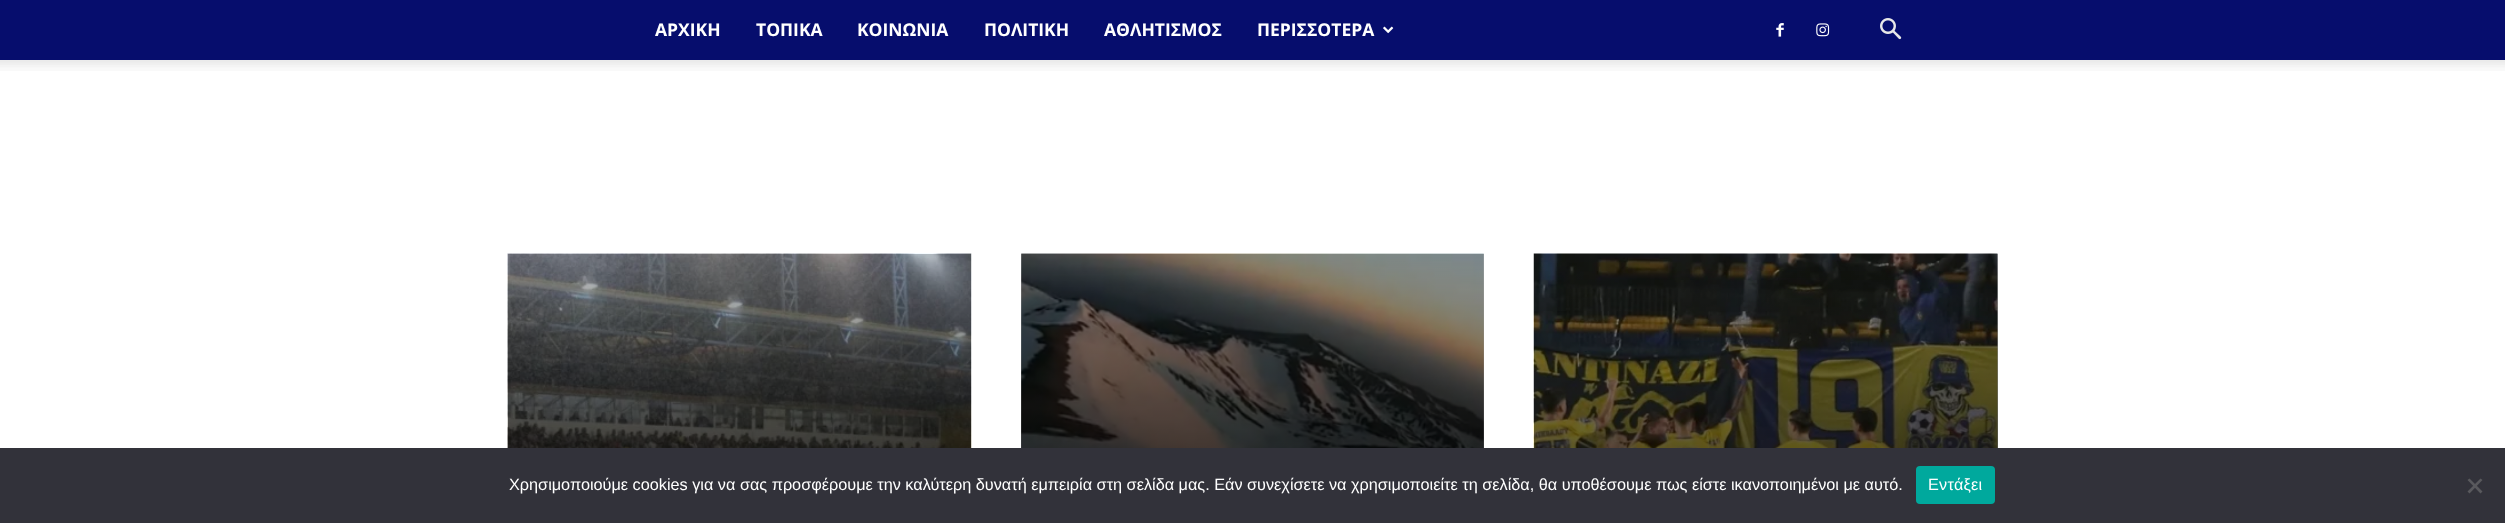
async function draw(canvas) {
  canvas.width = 2505
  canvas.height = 523
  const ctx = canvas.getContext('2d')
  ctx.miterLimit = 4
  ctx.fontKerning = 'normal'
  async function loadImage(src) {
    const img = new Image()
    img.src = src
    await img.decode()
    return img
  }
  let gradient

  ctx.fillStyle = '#fff'
  ctx.fillRect(0, 0, 2505, 523)
  ctx.fillStyle = '#060d6d'
  ctx.fillRect(0, 0, 2505, 60)
  ctx.font = 'bold 17.5px Open Sans'
  ctx.fillStyle = '#fff'
  ctx.fillText('ΑΡΧΙΚΗ', 655, 36)
  ctx.fillText('ΤΟΠΙΚΑ', 756, 36)
  ctx.fillText('ΚΟΙΝΩΝΙΑ', 857, 36)
  ctx.fillText('ΠΟΛΙΤΙΚΗ', 984, 36)
  ctx.fillText('ΑΘΛΗΤΙΣΜΟΣ', 1104, 36)
  ctx.fillText('ΠΕΡΙΣΣΟΤΕΡΑ', 1257, 36)
  ctx.drawImage(await loadImage('image0.png'), 1383, 26, 11, 8)
  ctx.drawImage(await loadImage('image1.png'), 1776, 23, 8, 14)
  ctx.drawImage(await loadImage('image2.png'), 1816, 23, 14, 14)
  ctx.drawImage(await loadImage('image3.png'), 1880, 18, 22, 22)
  ctx.drawImage(await loadImage('image4.png'), 0, 60, 2505, 11)
  ctx.drawImage(await loadImage('image5.png'), 507, 253, 465, 195)
  ctx.drawImage(await loadImage('image6.png'), 1021, 253, 463, 195)
  gradient = ctx.createLinearGradient(1253, 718, 1253, 254)
  gradient.addColorStop(0, '#000')
  gradient.addColorStop(0.17, '#000')
  gradient.addColorStop(1, '#00000040')
  ctx.fillStyle = gradient
  ctx.fillRect(1021, 254, 463, 194)
  ctx.drawImage(await loadImage('image7.png'), 1533, 253, 465, 195)
  gradient = ctx.createLinearGradient(1766, 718, 1766, 254)
  gradient.addColorStop(0, '#000')
  gradient.addColorStop(0.17, '#000')
  gradient.addColorStop(1, '#00000040')
  ctx.fillStyle = gradient
  ctx.fillRect(1534, 254, 464, 194)
  ctx.fillStyle = '#32323a'
  ctx.fillRect(0, 448, 2505, 75)
  ctx.font = '16.25px Liberation Sans'
  ctx.fillStyle = '#fff'
  ctx.fillText('Χρησιμοποιούμε cookies για να σας προσφέρουμε την καλύτερη δυνατή εμπειρία στη σελίδα μας. Εάν συνεχίσετε να χρησιμοποιείτε τη σελίδα, θα υποθέσουμε πως είστε ικανοποιημένοι με αυτό.', 509, 490)
  ctx.fillStyle = '#00a99d'
  ctx.beginPath()
  ctx.roundRect(1916, 466, 79, 38, 4)
  ctx.fill()
  ctx.letterSpacing = '0.25px'
  ctx.fillStyle = '#fff'
  ctx.fillText('Εντάξει', 1928, 490)
  ctx.fillStyle = '#59595d'
  ctx.beginPath()
  ctx.moveTo(2480.5, 478.5)
  ctx.lineTo(2482.5, 480)
  ctx.lineTo(2469.5, 493.5)
  ctx.lineTo(2467.5, 491.5)
  ctx.closePath()
  ctx.fill()
  ctx.beginPath()
  ctx.moveTo(2467.5, 480)
  ctx.lineTo(2469.5, 478.5)
  ctx.lineTo(2482.5, 491.5)
  ctx.lineTo(2480.5, 493.5)
  ctx.closePath()
  ctx.fill()
}

draw(document.querySelector('canvas'))
